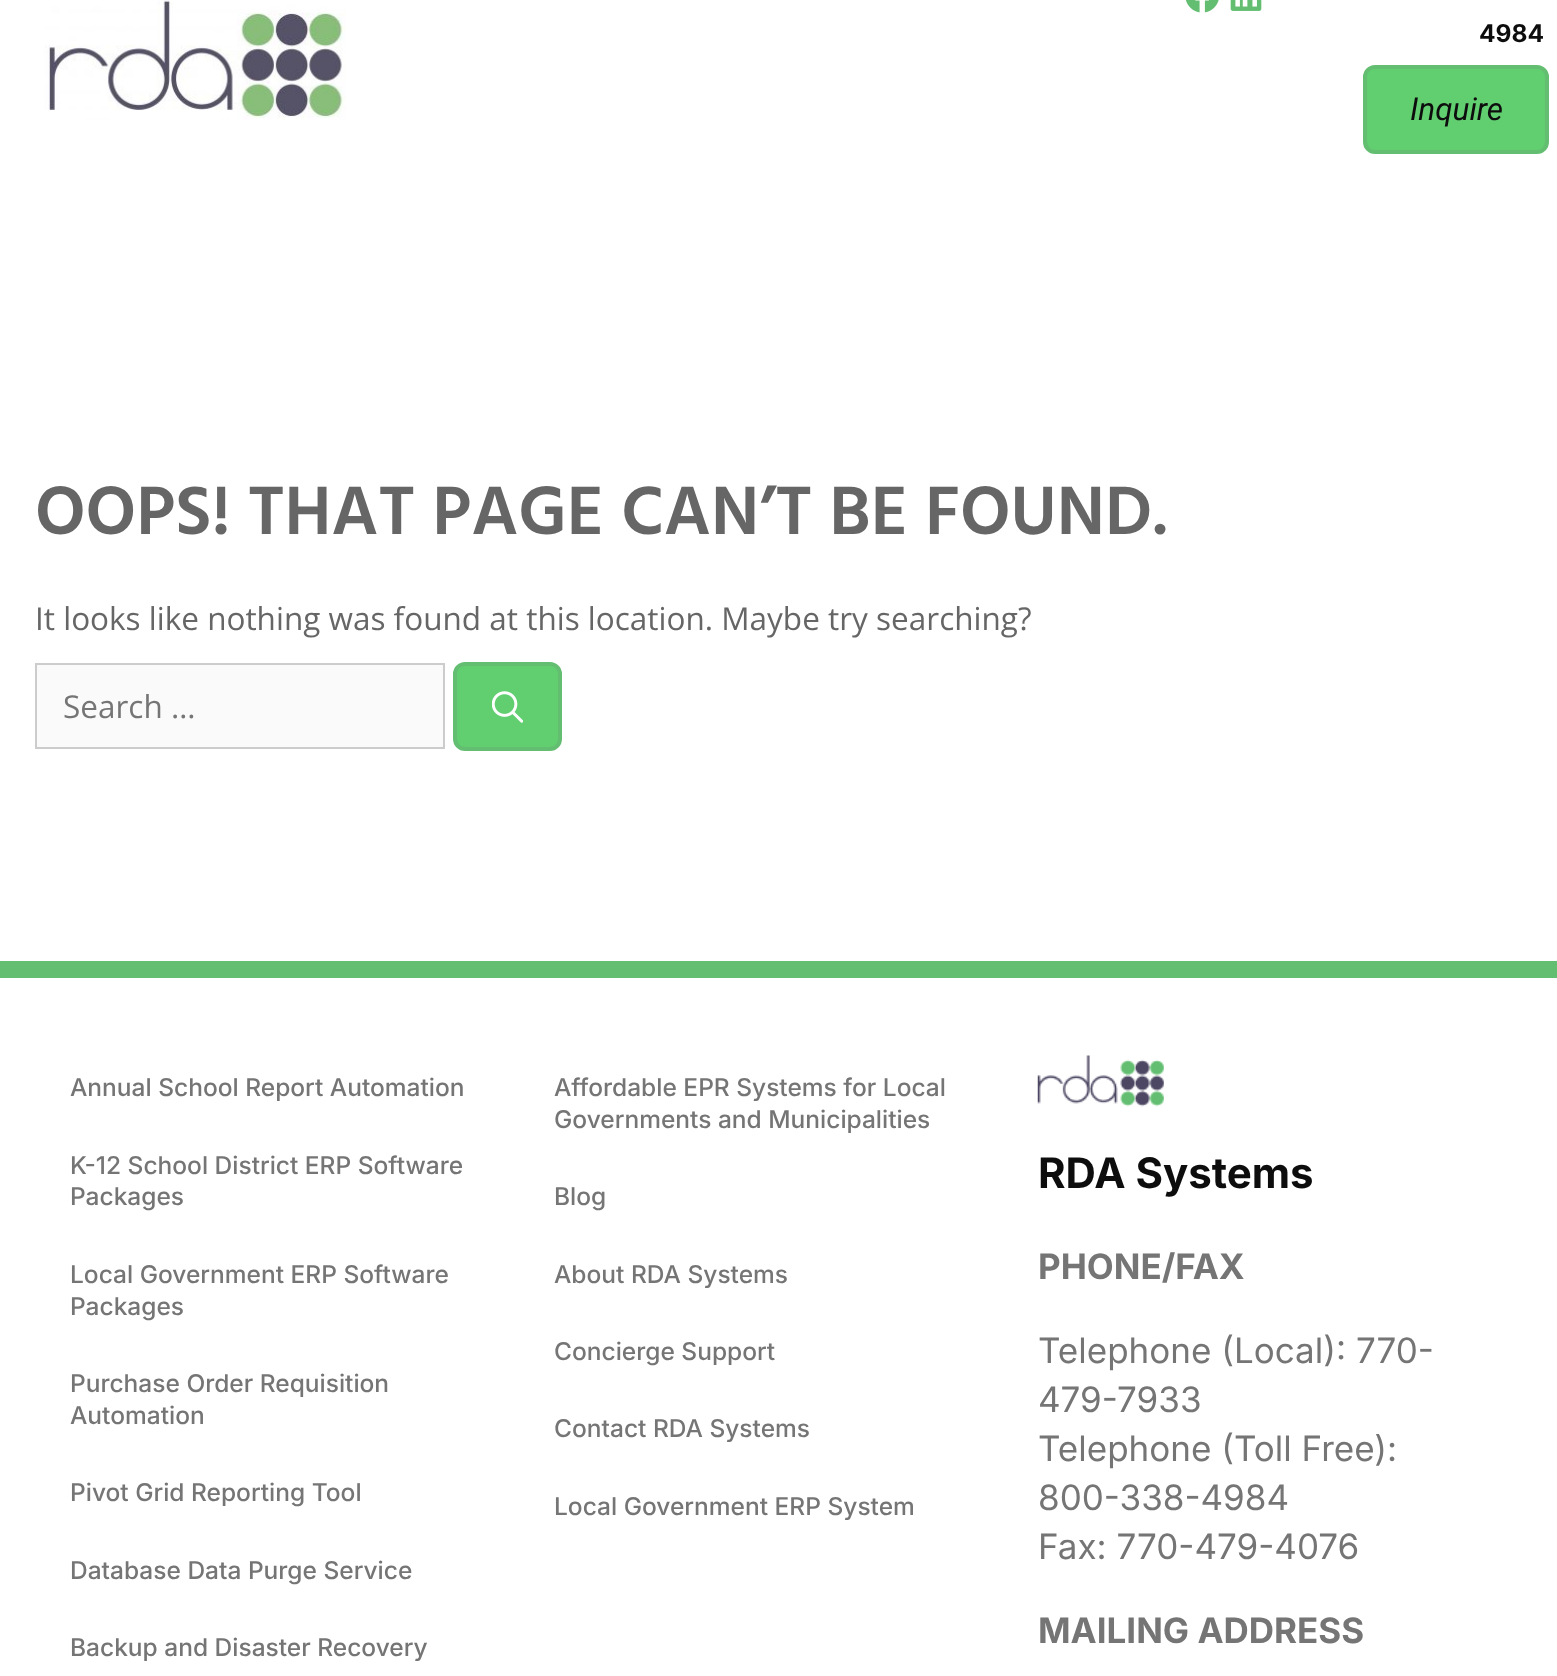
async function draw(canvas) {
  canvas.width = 1557
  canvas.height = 1676
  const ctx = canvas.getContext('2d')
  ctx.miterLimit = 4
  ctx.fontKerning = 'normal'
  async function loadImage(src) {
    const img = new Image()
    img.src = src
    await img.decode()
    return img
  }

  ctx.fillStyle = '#fff'
  ctx.fillRect(0, 0, 1557, 1676)
  ctx.drawImage(await loadImage('image0.png'), 44, 0, 302, 120)
  ctx.drawImage(await loadImage('image1.png'), 1185, 0, 34, 13)
  ctx.drawImage(await loadImage('image2.png'), 1230, 0, 32, 11)
  ctx.font = 'bold 24.5px Inter'
  ctx.fillStyle = '#0d0d0d'
  ctx.fillText('4984', 1479, 42)
  ctx.fillStyle = '#61ce70'
  ctx.beginPath()
  ctx.roundRect(1365, 67, 182, 85, 10)
  ctx.fill()
  ctx.strokeStyle = '#63be71'
  ctx.lineWidth = 4
  ctx.stroke()
  ctx.font = 'italic 31.5px Roboto'
  ctx.fillStyle = '#0d0d0d'
  ctx.fillText('Inquire', 1410, 120)
  ctx.font = '600 70px Hind'
  ctx.fillStyle = '#666'
  ctx.fillText('OOPS! THAT PAGE CAN’T BE FOUND.', 35, 534)
  ctx.font = '31.5px Open Sans'
  ctx.fillText('It looks like nothing was found at this location. Maybe try searching?', 35, 630)
  ctx.fillStyle = '#fafafa'
  ctx.beginPath()
  ctx.rect(36, 664, 408, 84)
  ctx.fill()
  ctx.strokeStyle = '#ccc'
  ctx.lineWidth = 2
  ctx.stroke()
  ctx.fillStyle = '#757575'
  ctx.fillText('Search …', 63, 718)
  ctx.fillStyle = '#61ce70'
  ctx.beginPath()
  ctx.roundRect(455, 664, 105, 85, 10)
  ctx.fill()
  ctx.strokeStyle = '#63be71'
  ctx.lineWidth = 4
  ctx.stroke()
  ctx.drawImage(await loadImage('image3.png'), 492, 691, 31, 32)
  ctx.fillStyle = '#63be72'
  ctx.fillRect(0, 961, 1557, 17)
  ctx.font = '500 24.5px Inter'
  ctx.fillStyle = '#757575'
  ctx.fillText('Annual School Report Automation', 70, 1096)
  ctx.fillText('K-12 School District ERP Software', 70, 1174)
  ctx.fillText('Packages', 70, 1205)
  ctx.fillText('Local Government ERP Software', 70, 1283)
  ctx.fillText('Packages', 70, 1315)
  ctx.fillText('Purchase Order Requisition', 70, 1392)
  ctx.fillText('Automation', 70, 1424)
  ctx.fillText('Pivot Grid Reporting Tool', 70, 1501)
  ctx.fillText('Database Data Purge Service', 70, 1579)
  ctx.fillText('Backup and Disaster Recovery', 70, 1656)
  ctx.fillText('Affordable EPR Systems for Local', 554, 1096)
  ctx.fillText('Governments and Municipalities', 554, 1128)
  ctx.fillText('Blog', 554, 1205)
  ctx.fillText('About RDA Systems', 554, 1283)
  ctx.fillText('Concierge Support', 554, 1360)
  ctx.fillText('Contact RDA Systems', 554, 1437)
  ctx.fillText('Local Government ERP System', 554, 1515)
  ctx.drawImage(await loadImage('image4.png'), 1037, 1055, 127, 52)
  ctx.font = 'bold 42px Inter'
  ctx.fillStyle = '#0d0d0d'
  ctx.fillText('RDA Systems', 1038, 1188)
  ctx.font = 'bold 35px Inter'
  ctx.fillStyle = '#757575'
  ctx.fillText('PHONE/FAX', 1038, 1279)
  ctx.font = '35px Inter'
  ctx.fillText('Telephone (Local): 770-', 1038, 1363)
  ctx.fillText('479-7933', 1038, 1412)
  ctx.fillText('Telephone (Toll Free):', 1038, 1461)
  ctx.fillText('800-338-4984', 1038, 1510)
  ctx.fillText('Fax: 770-479-4076', 1038, 1559)
  ctx.font = 'bold 35px Inter'
  ctx.fillText('MAILING ADDRESS', 1038, 1643)
}

draw(document.querySelector('canvas'))
